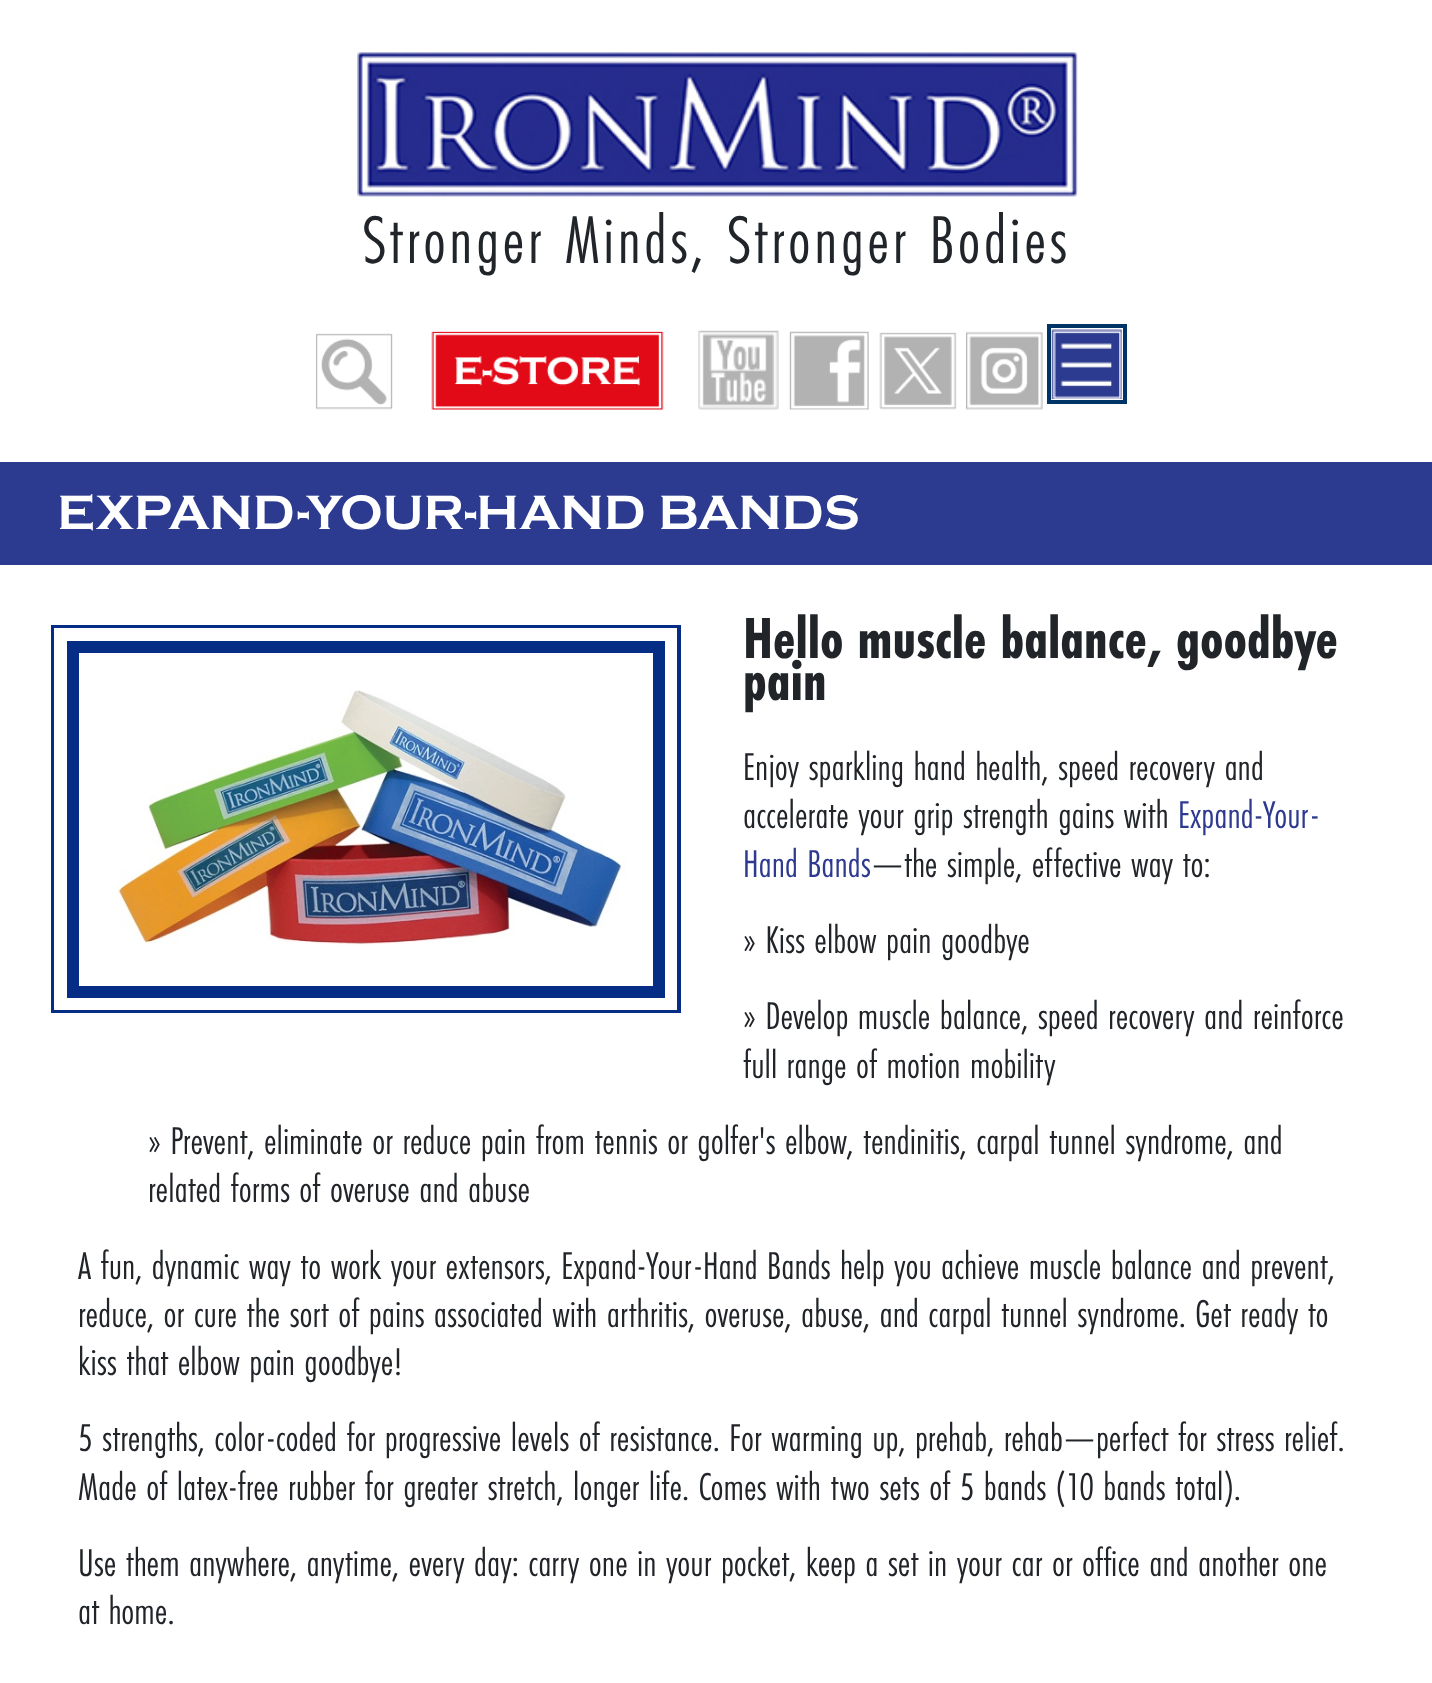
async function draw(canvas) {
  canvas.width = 1432
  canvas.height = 1683
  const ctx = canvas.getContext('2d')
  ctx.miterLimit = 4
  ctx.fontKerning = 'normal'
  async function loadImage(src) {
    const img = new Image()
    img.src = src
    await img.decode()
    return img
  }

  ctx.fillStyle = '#fff'
  ctx.fillRect(0, 0, 1432, 1683)
  ctx.drawImage(await loadImage('image0.png'), 357, 52, 721, 145)
  ctx.letterSpacing = '3.5px'
  ctx.font = '70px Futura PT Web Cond'
  ctx.fillStyle = '#212529'
  ctx.fillText('Stronger Minds, Stronger Bodies', 362, 263)
  ctx.drawImage(await loadImage('image1.png'), 315, 333, 78, 77)
  ctx.drawImage(await loadImage('image2.png'), 431, 331, 233, 79)
  ctx.drawImage(await loadImage('image3.png'), 698, 330, 81, 80)
  ctx.drawImage(await loadImage('image4.png'), 789, 331, 80, 79)
  ctx.drawImage(await loadImage('image5.png'), 879, 332, 78, 78)
  ctx.drawImage(await loadImage('image6.png'), 966, 331, 77, 79)
  ctx.drawImage(await loadImage('image7.png'), 1051, 329, 71, 70)
  ctx.strokeStyle = '#036'
  ctx.lineWidth = 4
  ctx.strokeRect(1049, 326, 76, 76)
  ctx.fillStyle = '#2c3b8f'
  ctx.fillRect(0, 462, 1432, 103)
  ctx.letterSpacing = '0px'
  ctx.font = 'bold 50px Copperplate'
  ctx.fillStyle = '#fff'
  ctx.fillText('EXPAND-YOUR-HAND BANDS', 57, 529)
  ctx.strokeStyle = '#052d86'
  ctx.lineWidth = 28
  ctx.strokeRect(65, 639, 602, 360)
  ctx.strokeStyle = '#fff'
  ctx.lineWidth = 25
  ctx.strokeRect(66.5, 640.5, 598, 357)
  ctx.strokeStyle = '#052d86'
  ctx.lineWidth = 12
  ctx.strokeRect(73, 647, 586, 345)
  ctx.drawImage(await loadImage('image8.png'), 117, 690, 510, 256)
  ctx.font = 'bold 60px Futura PT Web Cond'
  ctx.fillStyle = '#212529'
  ctx.fillText('Hello muscle balance, goodbye', 743, 658)
  ctx.fillText('pain', 743, 700)
  ctx.font = '40.25px Futura PT Web Cond'
  ctx.fillText('Enjoy sparkling hand health, speed recovery and', 743, 780)
  ctx.fillText('accelerate your grip strength gains with', 743, 828)
  ctx.fillStyle = '#2e3a8f'
  ctx.fillText('Expand-Your-', 1178, 828)
  ctx.fillText('Hand Bands', 743, 877)
  ctx.fillStyle = '#212529'
  ctx.fillText('—the simple, effective way to:', 871, 877)
  ctx.fillText('» Kiss elbow pain goodbye', 743, 953)
  ctx.fillText('» Develop muscle balance, speed recovery and reinforce', 743, 1029)
  ctx.fillText('full range of motion mobility', 743, 1078)
  ctx.fillText('» Prevent, eliminate or reduce pain from tennis or golfer\'s elbow, tendinitis, carpal tunnel syndrome, and', 148, 1154)
  ctx.fillText('related forms of overuse and abuse', 148, 1202)
  ctx.fillText('A fun, dynamic way to work your extensors, Expand-Your-Hand Bands help you achieve muscle balance and prevent,', 78, 1279)
  ctx.fillText('reduce, or cure the sort of pains associated with arthritis, overuse, abuse, and carpal tunnel syndrome. Get ready to', 78, 1327)
  ctx.fillText('kiss that elbow pain goodbye!', 78, 1375)
  ctx.fillText('5 strengths, color-coded for progressive levels of resistance. For warming up, prehab, rehab—perfect for stress relief.', 78, 1451)
  ctx.fillText('Made of latex-free rubber for greater stretch, longer life. Comes with two sets of 5 bands (10 bands total).', 78, 1500)
  ctx.fillText('Use them anywhere, anytime, every day: carry one in your pocket, keep a set in your car or office and another one', 78, 1576)
  ctx.fillText('at home.', 78, 1624)
}

draw(document.querySelector('canvas'))
